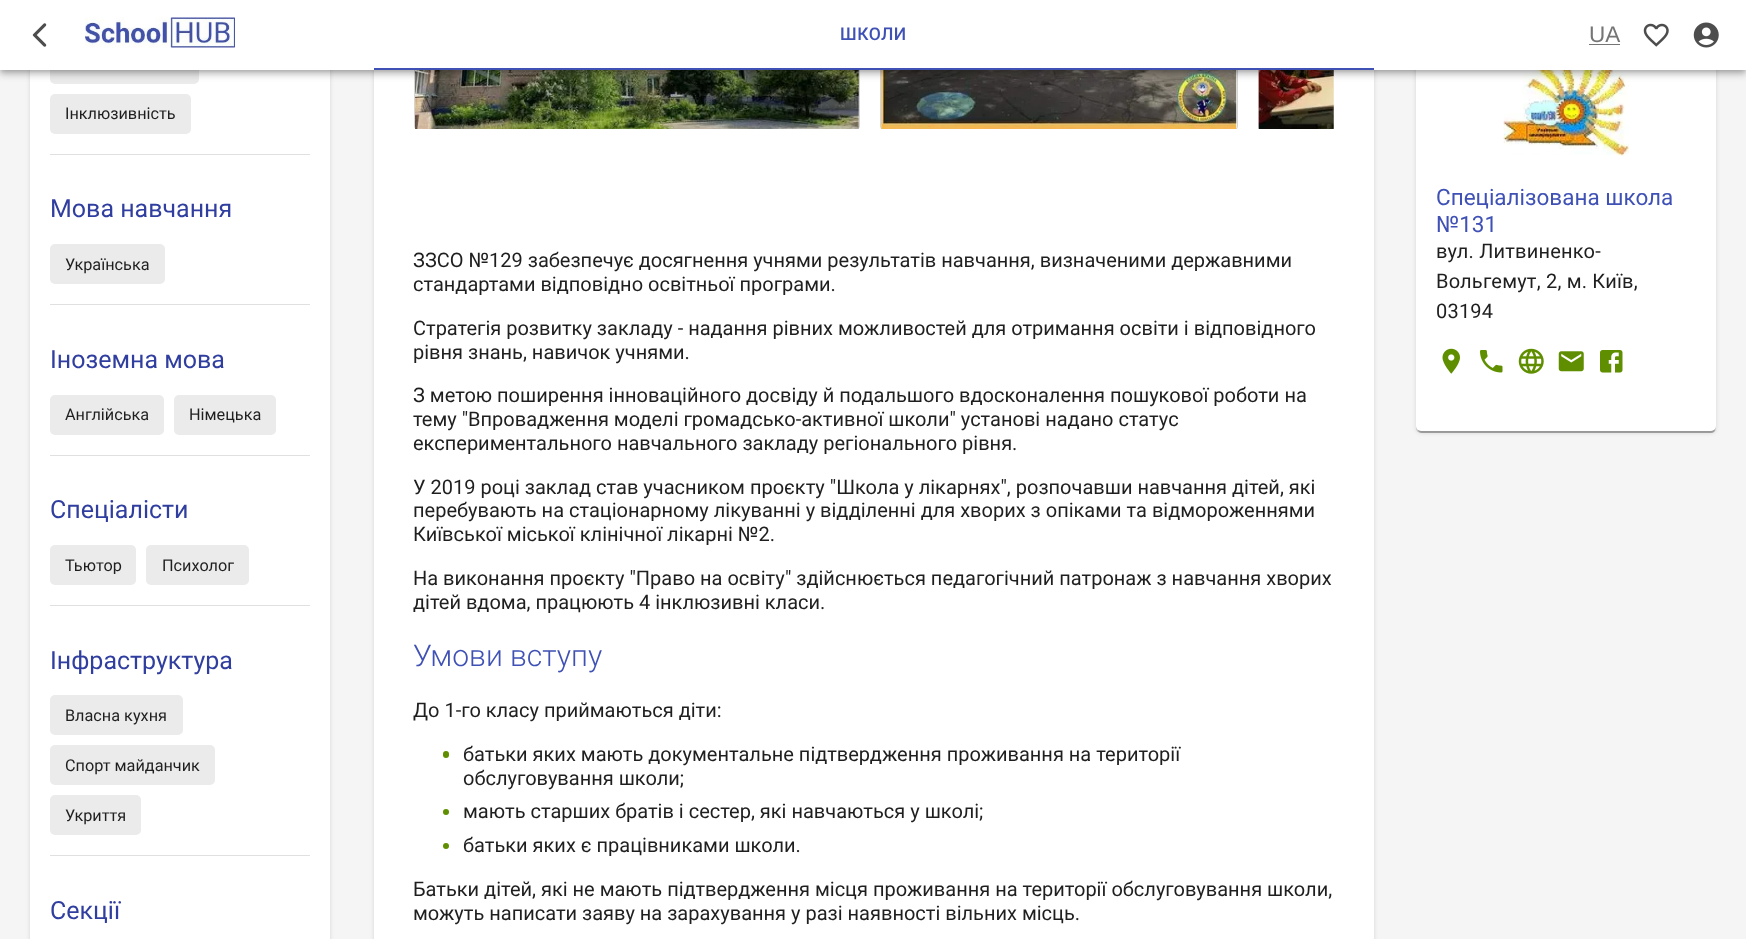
async function draw(canvas) {
  canvas.width = 1746
  canvas.height = 939
  const ctx = canvas.getContext('2d')
  ctx.miterLimit = 4
  ctx.fontKerning = 'normal'
  async function loadImage(src) {
    const img = new Image()
    img.src = src
    await img.decode()
    return img
  }

  ctx.fillStyle = '#f5f5f5'
  ctx.fillRect(0, 0, 1746, 939)
  ctx.fillStyle = '#0000001f'
  ctx.filter = 'blur(2px)'
  ctx.beginPath()
  ctx.roundRect(30, -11, 300, 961, 5)
  ctx.fill()
  ctx.filter = 'none'
  ctx.fillStyle = '#fff'
  ctx.fillRect(30, 70, 300, 869)
  ctx.fillStyle = '#ebebeb'
  ctx.beginPath()
  ctx.roundRect(50, 44, 149, 40, 5)
  ctx.fill()
  ctx.fillStyle = '#0000001f'
  ctx.filter = 'blur(2px)'
  ctx.beginPath()
  ctx.roundRect(374, -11, 1000, 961, 5)
  ctx.fill()
  ctx.filter = 'none'
  ctx.fillStyle = '#fff'
  ctx.fillRect(374, 70, 1000, 869)
  ctx.save()
  ctx.beginPath()
  ctx.rect(414, 0, 920, 129)
  ctx.clip()
  ctx.beginPath()
  ctx.roundRect(414.5, -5.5, 445, 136, 4.5)
  ctx.strokeStyle = '#d5d5d5'
  ctx.stroke()
  ctx.restore()
  ctx.drawImage(await loadImage('image4.png'), 415, 70, 444, 59)
  ctx.save()
  ctx.beginPath()
  ctx.rect(414, 0, 920, 129)
  ctx.clip()
  ctx.beginPath()
  ctx.roundRect(880.5, -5.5, 357, 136, 4.5)
  ctx.strokeStyle = '#d5d5d5'
  ctx.stroke()
  ctx.restore()
  ctx.drawImage(await loadImage('image5.png'), 881, 70, 356, 59)
  ctx.save()
  ctx.beginPath()
  ctx.rect(414, 0, 920, 129)
  ctx.clip()
  ctx.fillStyle = '#d5d5d5'
  ctx.beginPath()
  ctx.moveTo(1263, -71)
  ctx.bezierCurveTo(1260, -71, 1258, -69, 1258, -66)
  ctx.lineTo(1258, 126)
  ctx.bezierCurveTo(1258, 129, 1260, 131, 1263, 131)
  ctx.lineTo(1374, 131)
  ctx.lineTo(1374, 130)
  ctx.lineTo(1263, 130)
  ctx.bezierCurveTo(1261, 130, 1259, 128, 1259, 126)
  ctx.lineTo(1259, -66)
  ctx.bezierCurveTo(1259, -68, 1261, -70, 1263, -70)
  ctx.lineTo(1374, -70)
  ctx.lineTo(1374, -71)
  ctx.closePath()
  ctx.fill()
  ctx.restore()
  ctx.drawImage(await loadImage('image6.png'), 1258, 70, 76, 59)
  ctx.fillStyle = '#0000001f'
  ctx.filter = 'blur(2px)'
  ctx.beginPath()
  ctx.roundRect(1416, -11, 300, 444, 5)
  ctx.fill()
  ctx.filter = 'none'
  ctx.fillStyle = '#00000024'
  ctx.filter = 'blur(0.5px)'
  ctx.beginPath()
  ctx.roundRect(1416, -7, 300, 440, 5)
  ctx.fill()
  ctx.filter = 'none'
  ctx.fillStyle = '#00000033'
  ctx.filter = 'blur(0.5px)'
  ctx.beginPath()
  ctx.roundRect(1418, -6, 297, 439, 4)
  ctx.fill()
  ctx.filter = 'none'
  ctx.fillStyle = '#fff'
  ctx.beginPath()
  ctx.roundRect(1416, -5, 300, 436, 5)
  ctx.fill()
  ctx.drawImage(await loadImage('image7.png'), 1503, 70, 126, 86)
  ctx.fillStyle = '#0000001f'
  ctx.filter = 'blur(6px)'
  ctx.beginPath()
  ctx.rect(0, 1, 1746, 70)
  ctx.fill()
  ctx.filter = 'none'
  ctx.fillStyle = '#00000024'
  ctx.filter = 'blur(3px)'
  ctx.beginPath()
  ctx.rect(0, 5, 1746, 70)
  ctx.fill()
  ctx.filter = 'none'
  ctx.fillStyle = '#00000033'
  ctx.filter = 'blur(2.5px)'
  ctx.beginPath()
  ctx.rect(1, 4, 1744, 67)
  ctx.fill()
  ctx.filter = 'none'
  ctx.fillStyle = '#fff'
  ctx.fillRect(0, 0, 1746, 70)
  ctx.drawImage(await loadImage('image0.png'), 32, 23, 15, 24)
  ctx.drawImage(await loadImage('image1.png'), 85, 17, 150, 31)
  ctx.letterSpacing = '0.5px'
  ctx.font = '500 17.5px Roboto'
  ctx.fillStyle = '#3f51b5'
  ctx.fillText('ШКОЛИ', 840, 40)
  ctx.fillRect(374, 68, 1000, 2)
  ctx.letterSpacing = '0px'
  ctx.font = '22.5px Liberation Sans'
  ctx.fillStyle = '#757575'
  ctx.fillText('UA', 1589, 42)
  ctx.fillRect(1589, 44, 31, 1)
  ctx.drawImage(await loadImage('image2.png'), 1643, 23, 26, 24)
  ctx.drawImage(await loadImage('image3.png'), 1693, 22, 26, 26)
  ctx.fillStyle = '#ebebeb'
  ctx.beginPath()
  ctx.roundRect(50, 94, 141, 40, 5)
  ctx.fill()
  ctx.font = '16.25px Roboto'
  ctx.fillStyle = '#1f1f1f'
  ctx.fillText('Інклюзивність', 65, 119)
  ctx.fillStyle = '#e0e0e0'
  ctx.fillRect(50, 154, 260, 1)
  ctx.font = '25px Roboto'
  ctx.fillStyle = '#303f9f'
  ctx.fillText('Мова навчання', 50, 217)
  ctx.fillStyle = '#ebebeb'
  ctx.beginPath()
  ctx.roundRect(50, 244, 115, 40, 5)
  ctx.fill()
  ctx.font = '16.25px Roboto'
  ctx.fillStyle = '#1f1f1f'
  ctx.fillText('Українська', 65, 270)
  ctx.fillStyle = '#e0e0e0'
  ctx.fillRect(50, 304, 260, 1)
  ctx.font = '25px Roboto'
  ctx.fillStyle = '#303f9f'
  ctx.fillText('Іноземна мова', 50, 368)
  ctx.fillStyle = '#ebebeb'
  ctx.beginPath()
  ctx.roundRect(50, 395, 114, 40, 5)
  ctx.fill()
  ctx.font = '16.25px Roboto'
  ctx.fillStyle = '#1f1f1f'
  ctx.fillText('Англійська', 65, 420)
  ctx.fillStyle = '#ebebeb'
  ctx.beginPath()
  ctx.roundRect(174, 395, 102, 40, 5)
  ctx.fill()
  ctx.fillStyle = '#1f1f1f'
  ctx.fillText('Німецька', 189, 420)
  ctx.fillStyle = '#e0e0e0'
  ctx.fillRect(50, 455, 260, 1)
  ctx.font = '25px Roboto'
  ctx.fillStyle = '#303f9f'
  ctx.fillText('Спеціалісти', 50, 518)
  ctx.fillStyle = '#ebebeb'
  ctx.beginPath()
  ctx.roundRect(50, 545, 86, 40, 5)
  ctx.fill()
  ctx.save()
  ctx.beginPath()
  ctx.rect(50, 555, 86, 19)
  ctx.clip()
  ctx.font = '16.25px Roboto'
  ctx.fillStyle = '#1f1f1f'
  ctx.fillText('Тьютор', 65, 571)
  ctx.restore()
  ctx.beginPath()
  ctx.roundRect(146, 545, 103, 40, 5)
  ctx.fill()
  ctx.font = '16.25px Roboto'
  ctx.fillStyle = '#1f1f1f'
  ctx.fillText('Психолог', 162, 571)
  ctx.fillStyle = '#e0e0e0'
  ctx.fillRect(50, 605, 260, 1)
  ctx.font = '25px Roboto'
  ctx.fillStyle = '#303f9f'
  ctx.fillText('Інфраструктура', 50, 669)
  ctx.fillStyle = '#ebebeb'
  ctx.beginPath()
  ctx.roundRect(50, 695, 133, 40, 5)
  ctx.fill()
  ctx.font = '16.25px Roboto'
  ctx.fillStyle = '#1f1f1f'
  ctx.fillText('Власна кухня', 65, 721)
  ctx.fillStyle = '#ebebeb'
  ctx.beginPath()
  ctx.roundRect(50, 745, 165, 40, 5)
  ctx.fill()
  ctx.fillStyle = '#1f1f1f'
  ctx.fillText('Спорт майданчик', 65, 771)
  ctx.fillStyle = '#ebebeb'
  ctx.beginPath()
  ctx.roundRect(50, 795, 91, 40, 5)
  ctx.fill()
  ctx.fillStyle = '#1f1f1f'
  ctx.fillText('Укриття', 65, 821)
  ctx.fillStyle = '#e0e0e0'
  ctx.fillRect(50, 855, 260, 1)
  ctx.font = '25px Roboto'
  ctx.fillStyle = '#303f9f'
  ctx.fillText('Секції', 50, 919)
  ctx.font = '20px Roboto'
  ctx.fillStyle = '#1f1f1f'
  ctx.fillText('ЗЗСО №129 забезпечує досягнення учнями результатів навчання, визначеними державними', 413, 267)
  ctx.fillText('стандартами відповідно освітньої програми.', 413, 291)
  ctx.fillText('Стратегія розвитку закладу - надання рівних можливостей для отримання освіти і відповідного', 413, 335)
  ctx.fillText('рівня знань, навичок учнями.', 413, 359)
  ctx.fillText('З метою поширення інноваційного досвіду й подальшого вдосконалення пошукової роботи на', 413, 402)
  ctx.fillText('тему "Впровадження моделі громадсько-активної школи" установі надано статус', 413, 426)
  ctx.fillText('експериментального навчального закладу регіонального рівня.', 413, 450)
  ctx.fillText('У 2019 році заклад став учасником проєкту "Школа у лікарнях", розпочавши навчання дітей, які', 413, 494)
  ctx.fillText('перебувають на стаціонарному лікуванні у відділенні для хворих з опіками та відмороженнями', 413, 517)
  ctx.fillText('Київської міської клінічної лікарні №2.', 413, 541)
  ctx.fillText('На виконання проєкту "Право на освіту" здійснюється педагогічний патронаж з навчання хворих', 413, 585)
  ctx.fillText('дітей вдома, працюють 4 інклюзивні класи.', 413, 609)
  ctx.font = '300 30px Roboto'
  ctx.fillStyle = '#3f51b5'
  ctx.fillText('Умови вступу', 413, 666)
  ctx.font = '20px Roboto'
  ctx.fillStyle = '#1f1f1f'
  ctx.fillText('До 1-го класу приймаються діти:', 413, 717)
  ctx.fillStyle = '#5f8f01'
  ctx.beginPath()
  ctx.roundRect(443, 751, 6, 7, 3)
  ctx.fill()
  ctx.fillStyle = '#1f1f1f'
  ctx.fillText('батьки яких мають документальне підтвердження проживання на території', 463, 761)
  ctx.fillText('обслуговування школи;', 463, 785)
  ctx.fillStyle = '#5f8f01'
  ctx.beginPath()
  ctx.arc(446, 812, 3, 0, 2 * Math.PI)
  ctx.fill()
  ctx.fillStyle = '#1f1f1f'
  ctx.fillText('мають старших братів і сестер, які навчаються у школі;', 463, 818)
  ctx.fillStyle = '#5f8f01'
  ctx.beginPath()
  ctx.arc(446, 846, 3, 0, 2 * Math.PI)
  ctx.fill()
  ctx.fillStyle = '#1f1f1f'
  ctx.fillText('батьки яких є працівниками школи.', 463, 852)
  ctx.fillText('Батьки дітей, які не мають підтвердження місця проживання на території обслуговування школи,', 413, 896)
  ctx.fillText('можуть написати заяву на зарахування у разі наявності вільних місць.', 413, 920)
  ctx.font = '22.5px Roboto'
  ctx.fillStyle = '#3f51b5'
  ctx.fillText('Спеціалізована школа', 1436, 205)
  ctx.fillText('№131', 1436, 232)
  ctx.letterSpacing = '0.2px'
  ctx.font = '20px Roboto'
  ctx.fillStyle = '#1f1f1f'
  ctx.fillText('вул. Литвиненко-', 1436, 258)
  ctx.fillText('Вольгемут, 2, м. Київ,', 1436, 288)
  ctx.fillText('03194', 1436, 318)
  ctx.drawImage(await loadImage('image8.png'), 1442, 348, 18, 26)
  ctx.drawImage(await loadImage('image9.png'), 1480, 350, 23, 23)
  ctx.drawImage(await loadImage('image10.png'), 1518, 348, 26, 26)
  ctx.drawImage(await loadImage('image11.png'), 1558, 351, 26, 21)
  ctx.drawImage(await loadImage('image12.png'), 1600, 350, 23, 23)
}

draw(document.querySelector('canvas'))
